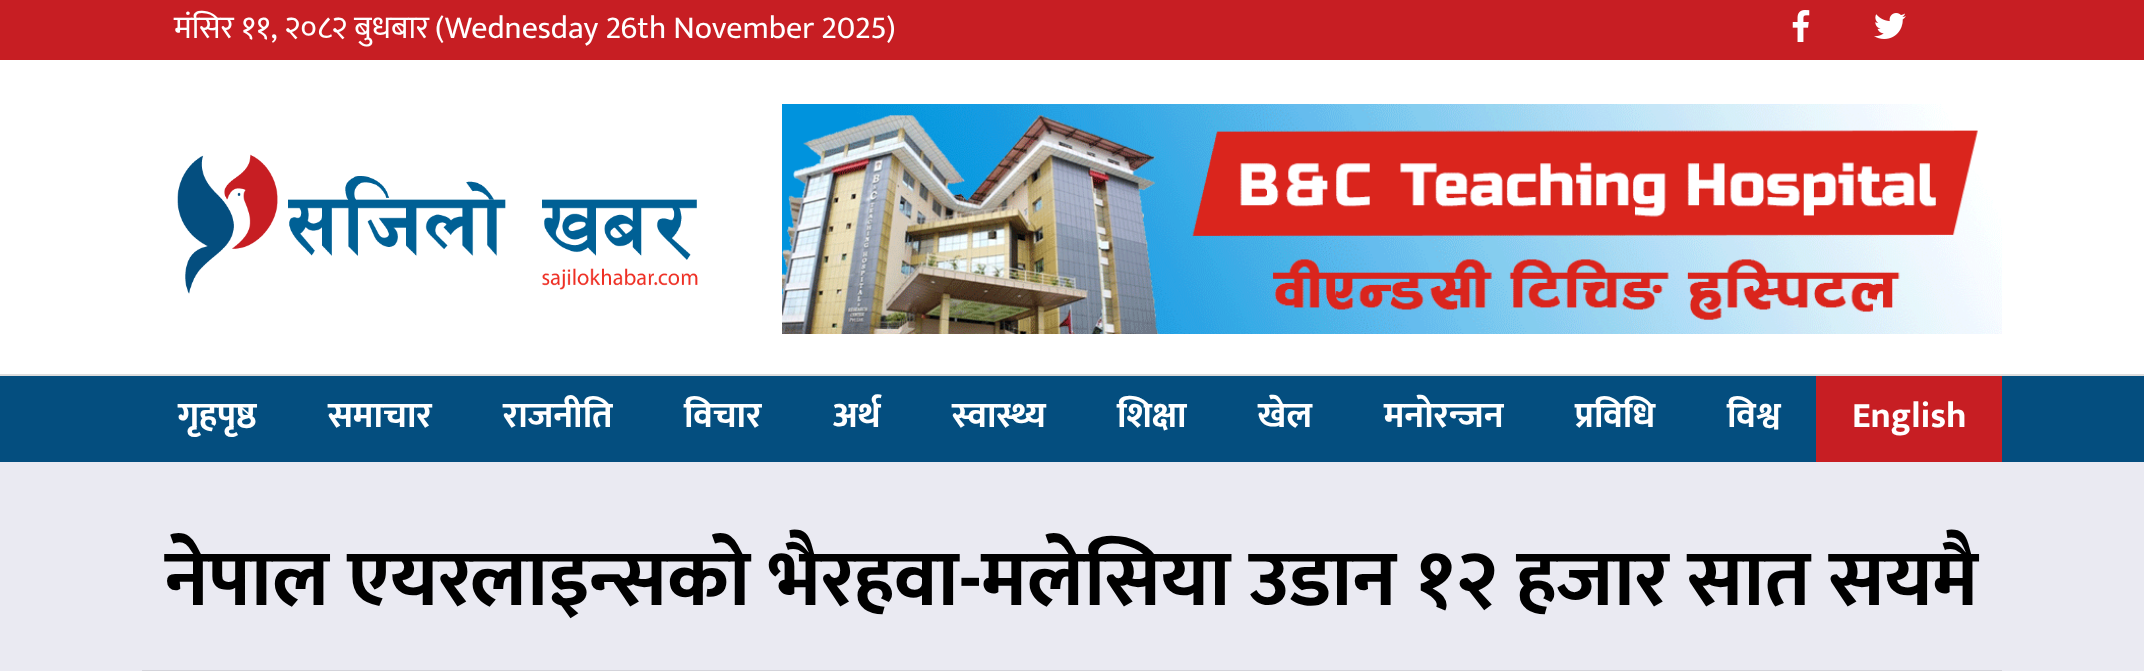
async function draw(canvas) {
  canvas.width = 2144
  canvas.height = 671
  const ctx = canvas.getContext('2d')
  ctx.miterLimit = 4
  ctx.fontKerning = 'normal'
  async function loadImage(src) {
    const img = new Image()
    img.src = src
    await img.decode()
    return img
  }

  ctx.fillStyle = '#eaeaf2'
  ctx.fillRect(0, 0, 2144, 671)
  ctx.fillStyle = '#fff'
  ctx.fillRect(0, 60, 2144, 314)
  ctx.fillStyle = '#c71e23'
  ctx.fillRect(0, 0, 2144, 60)
  ctx.font = '32px Mukta'
  ctx.fillStyle = '#fff'
  ctx.fillText('मंसिर ११, २०८२ बुधबार', 174, 38)
  ctx.fillText('(Wednesday 26th November 2025)', 435, 38)
  ctx.drawImage(await loadImage('image0.png'), 1792, 10, 18, 32)
  ctx.drawImage(await loadImage('image1.png'), 1874, 13, 32, 26)
  ctx.drawImage(await loadImage('image2.png'), 177, 154, 521, 140)
  ctx.drawImage(await loadImage('image3.png'), 782, 104, 1220, 230)
  ctx.fillStyle = '#044e7f'
  ctx.fillRect(0, 376, 2144, 86)
  ctx.fillStyle = '#ddd'
  ctx.fillRect(0, 374, 2144, 2)
  ctx.font = 'bold 36px Mukta'
  ctx.fillStyle = '#fff'
  ctx.fillText('गृहपृष्ठ', 178, 427)
  ctx.fillText('समाचार', 328, 427)
  ctx.fillText('राजनीति', 503, 427)
  ctx.fillText('विचार', 684, 427)
  ctx.fillText('अर्थ', 833, 427)
  ctx.fillText('स्वास्थ्य', 952, 427)
  ctx.fillText('शिक्षा', 1117, 427)
  ctx.fillText('खेल', 1258, 427)
  ctx.fillText('मनोरन्जन', 1384, 427)
  ctx.fillText('प्रविधि', 1575, 427)
  ctx.fillText('विश्व', 1727, 427)
  ctx.fillStyle = '#c71e23'
  ctx.fillRect(1816, 376, 186, 86)
  ctx.fillStyle = '#fff'
  ctx.fillText('English', 1852, 427)
  ctx.font = 'bold 80px Mukta'
  ctx.fillStyle = '#000'
  ctx.fillText('नेपाल एयरलाइन्सको भैरहवा-मलेसिया उडान १२ हजार सात सयमै', 165, 605)
  ctx.fillStyle = '#d3d3da'
  ctx.fillRect(142, 670, 1860, 1)
}

draw(document.querySelector('canvas'))
